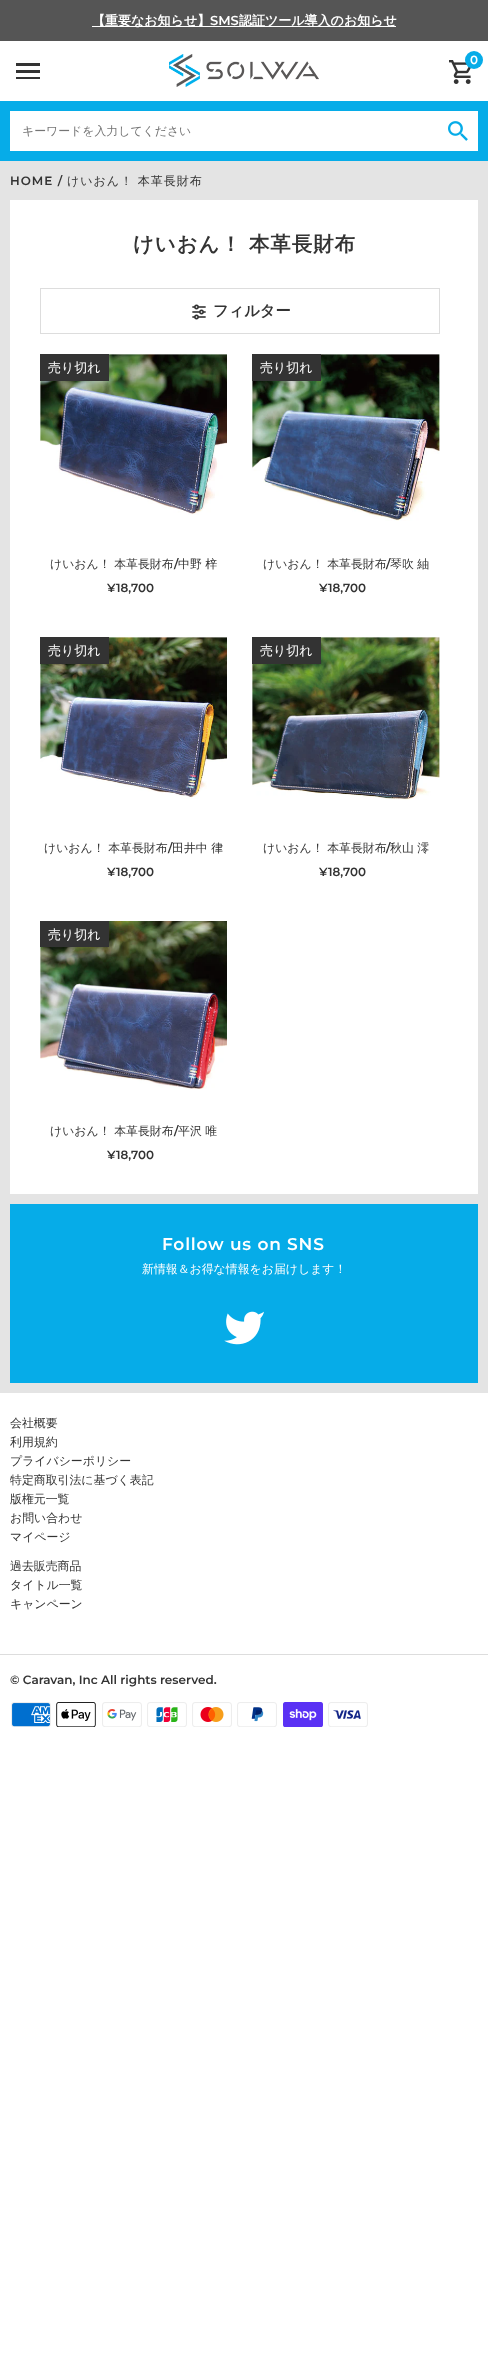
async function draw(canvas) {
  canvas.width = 488
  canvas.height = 2361
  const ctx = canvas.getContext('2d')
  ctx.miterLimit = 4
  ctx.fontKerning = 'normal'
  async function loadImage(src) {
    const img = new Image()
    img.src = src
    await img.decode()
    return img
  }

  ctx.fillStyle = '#fff'
  ctx.fillRect(0, 0, 488, 2361)
  ctx.fillStyle = '#e4e4e4'
  ctx.fillRect(0, 161, 488, 1232)
  ctx.fillStyle = '#555'
  ctx.fillRect(0, 0, 488, 41)
  ctx.fillStyle = '#fff'
  ctx.fillRect(92, 26, 304, 1)
  ctx.font = 'bold 13px WenQuanYi Zen Hei'
  ctx.fillText('【重要なお知らせ】', 92, 25)
  ctx.font = '100 13px Montserrat'
  ctx.fillText('SMS', 210, 25)
  ctx.font = 'bold 13px WenQuanYi Zen Hei'
  ctx.fillText('認証ツール導入のお知らせ', 239, 25)
  ctx.drawImage(await loadImage('image0.png'), 169, 54, 150, 33)
  ctx.drawImage(await loadImage('image1.png'), 449, 60, 22, 24)
  ctx.fillStyle = '#06ace8'
  ctx.beginPath()
  ctx.arc(474, 60, 9, 0, 2 * Math.PI)
  ctx.fill()
  ctx.font = '100 11.9px Montserrat'
  ctx.fillStyle = '#fff'
  ctx.fillText('0', 470, 64)
  ctx.fillStyle = '#333'
  ctx.fillRect(16, 77, 24, 2)
  ctx.fillRect(16, 70, 24, 3)
  ctx.fillRect(16, 63, 24, 3)
  ctx.fillStyle = '#06ace8'
  ctx.fillRect(0, 101, 488, 60)
  ctx.fillStyle = '#fff'
  ctx.fillRect(10, 111, 468, 40)
  ctx.font = '500 11.9px WenQuanYi Zen Hei'
  ctx.fillStyle = '#757575'
  ctx.fillText('キーワードを入力してください', 22, 135)
  ctx.drawImage(await loadImage('image2.png'), 448, 121, 20, 20)
  ctx.letterSpacing = '1px'
  ctx.font = '100 12px Montserrat'
  ctx.fillStyle = '#333'
  ctx.fillText('HOME /', 10, 185)
  ctx.font = '500 12px WenQuanYi Zen Hei'
  ctx.fillText('けいおん！ 本革長財布', 67, 185)
  ctx.fillStyle = '#fff'
  ctx.fillRect(10, 200, 468, 994)
  ctx.font = 'bold 20.4px WenQuanYi Zen Hei'
  ctx.fillStyle = '#333'
  ctx.fillText('けいおん！ 本革長財布', 133, 251)
  ctx.strokeStyle = '#ddd'
  ctx.strokeRect(40.5, 288.5, 399, 45)
  ctx.drawImage(await loadImage('image3.png'), 192, 304, 14, 16)
  ctx.letterSpacing = '0px'
  ctx.font = 'bold 15.25px WenQuanYi Zen Hei'
  ctx.fillText('フィルター', 213, 316)
  ctx.drawImage(await loadImage('image4.png'), 40, 354, 187, 161)
  ctx.fillRect(40, 354, 69, 27)
  ctx.font = '500 13px WenQuanYi Zen Hei'
  ctx.fillStyle = '#fff'
  ctx.fillText('売り切れ', 48, 372)
  ctx.font = '500 11.9px WenQuanYi Zen Hei'
  ctx.fillStyle = '#333'
  ctx.fillText('けいおん！ 本革長財布', 50, 568)
  ctx.font = '100 11.9px Montserrat'
  ctx.fillText('/', 174, 568)
  ctx.font = '500 11.9px WenQuanYi Zen Hei'
  ctx.fillText('中野 梓', 178, 568)
  ctx.font = '100 11.9px Montserrat'
  ctx.fillText('¥18,700', 107, 592)
  ctx.drawImage(await loadImage('image5.png'), 252, 354, 188, 167)
  ctx.fillRect(252, 354, 69, 27)
  ctx.font = '500 13px WenQuanYi Zen Hei'
  ctx.fillStyle = '#fff'
  ctx.fillText('売り切れ', 260, 372)
  ctx.font = '500 11.9px WenQuanYi Zen Hei'
  ctx.fillStyle = '#333'
  ctx.fillText('けいおん！ 本革長財布', 263, 568)
  ctx.font = '100 11.9px Montserrat'
  ctx.fillText('/', 386, 568)
  ctx.font = '500 11.9px WenQuanYi Zen Hei'
  ctx.fillText('琴吹 紬', 390, 568)
  ctx.font = '100 11.9px Montserrat'
  ctx.fillText('¥18,700', 319, 592)
  ctx.drawImage(await loadImage('image6.png'), 40, 637, 187, 162)
  ctx.fillRect(40, 637, 69, 27)
  ctx.font = '500 13px WenQuanYi Zen Hei'
  ctx.fillStyle = '#fff'
  ctx.fillText('売り切れ', 48, 655)
  ctx.font = '500 11.9px WenQuanYi Zen Hei'
  ctx.fillStyle = '#333'
  ctx.fillText('けいおん！ 本革長財布', 44, 852)
  ctx.font = '100 11.9px Montserrat'
  ctx.fillText('/', 168, 852)
  ctx.font = '500 11.9px WenQuanYi Zen Hei'
  ctx.fillText('田井中 律', 172, 852)
  ctx.font = '100 11.9px Montserrat'
  ctx.fillText('¥18,700', 107, 876)
  ctx.drawImage(await loadImage('image7.png'), 252, 637, 188, 163)
  ctx.fillRect(252, 637, 69, 27)
  ctx.font = '500 13px WenQuanYi Zen Hei'
  ctx.fillStyle = '#fff'
  ctx.fillText('売り切れ', 260, 655)
  ctx.font = '500 11.9px WenQuanYi Zen Hei'
  ctx.fillStyle = '#333'
  ctx.fillText('けいおん！ 本革長財布', 263, 852)
  ctx.font = '100 11.9px Montserrat'
  ctx.fillText('/', 386, 852)
  ctx.font = '500 11.9px WenQuanYi Zen Hei'
  ctx.fillText('秋山 澪', 390, 852)
  ctx.font = '100 11.9px Montserrat'
  ctx.fillText('¥18,700', 319, 876)
  ctx.drawImage(await loadImage('image8.png'), 40, 921, 187, 169)
  ctx.fillRect(40, 921, 69, 26)
  ctx.font = '500 13px WenQuanYi Zen Hei'
  ctx.fillStyle = '#fff'
  ctx.fillText('売り切れ', 48, 939)
  ctx.font = '500 11.9px WenQuanYi Zen Hei'
  ctx.fillStyle = '#333'
  ctx.fillText('けいおん！ 本革長財布', 50, 1135)
  ctx.font = '100 11.9px Montserrat'
  ctx.fillText('/', 174, 1135)
  ctx.font = '500 11.9px WenQuanYi Zen Hei'
  ctx.fillText('平沢 唯', 178, 1135)
  ctx.font = '100 11.9px Montserrat'
  ctx.fillText('¥18,700', 107, 1159)
  ctx.fillStyle = '#06ace8'
  ctx.fillRect(10, 1204, 468, 179)
  ctx.letterSpacing = '0.8px'
  ctx.font = '100 17px Montserrat'
  ctx.fillStyle = '#fff'
  ctx.fillText('Follow us on SNS', 162, 1250)
  ctx.letterSpacing = '0px'
  ctx.font = '500 11.9px WenQuanYi Zen Hei'
  ctx.fillText('新情報＆お得な情報をお届けします！', 142, 1273)
  ctx.drawImage(await loadImage('image9.png'), 224, 1311, 40, 34)
  ctx.fillStyle = '#333'
  ctx.fillText('会社概要', 10, 1427)
  ctx.fillText('利用規約', 10, 1446)
  ctx.fillText('プライバシーポリシー', 10, 1465)
  ctx.fillText('特定商取引法に基づく表記', 10, 1484)
  ctx.fillText('版権元一覧', 10, 1503)
  ctx.fillText('お問い合わせ', 10, 1522)
  ctx.fillText('マイページ', 10, 1541)
  ctx.fillText('過去販売商品', 10, 1570)
  ctx.fillText('タイトル一覧', 10, 1589)
  ctx.fillText('キャンペーン', 10, 1608)
  ctx.fillStyle = '#ddd'
  ctx.fillRect(0, 1654, 488, 1)
  ctx.font = '100 12px Montserrat'
  ctx.fillStyle = '#333'
  ctx.fillText('© Caravan, Inc All rights reserved.', 10, 1684)
  ctx.drawImage(await loadImage('image10.png'), 11, 1702, 40, 25)
  ctx.drawImage(await loadImage('image11.png'), 56, 1702, 40, 25)
  ctx.drawImage(await loadImage('image12.png'), 102, 1702, 40, 25)
  ctx.drawImage(await loadImage('image13.png'), 147, 1702, 40, 25)
  ctx.drawImage(await loadImage('image14.png'), 192, 1702, 40, 25)
  ctx.drawImage(await loadImage('image15.png'), 237, 1702, 40, 25)
  ctx.drawImage(await loadImage('image16.png'), 283, 1702, 40, 25)
  ctx.drawImage(await loadImage('image17.png'), 328, 1702, 40, 25)
}

draw(document.querySelector('canvas'))
